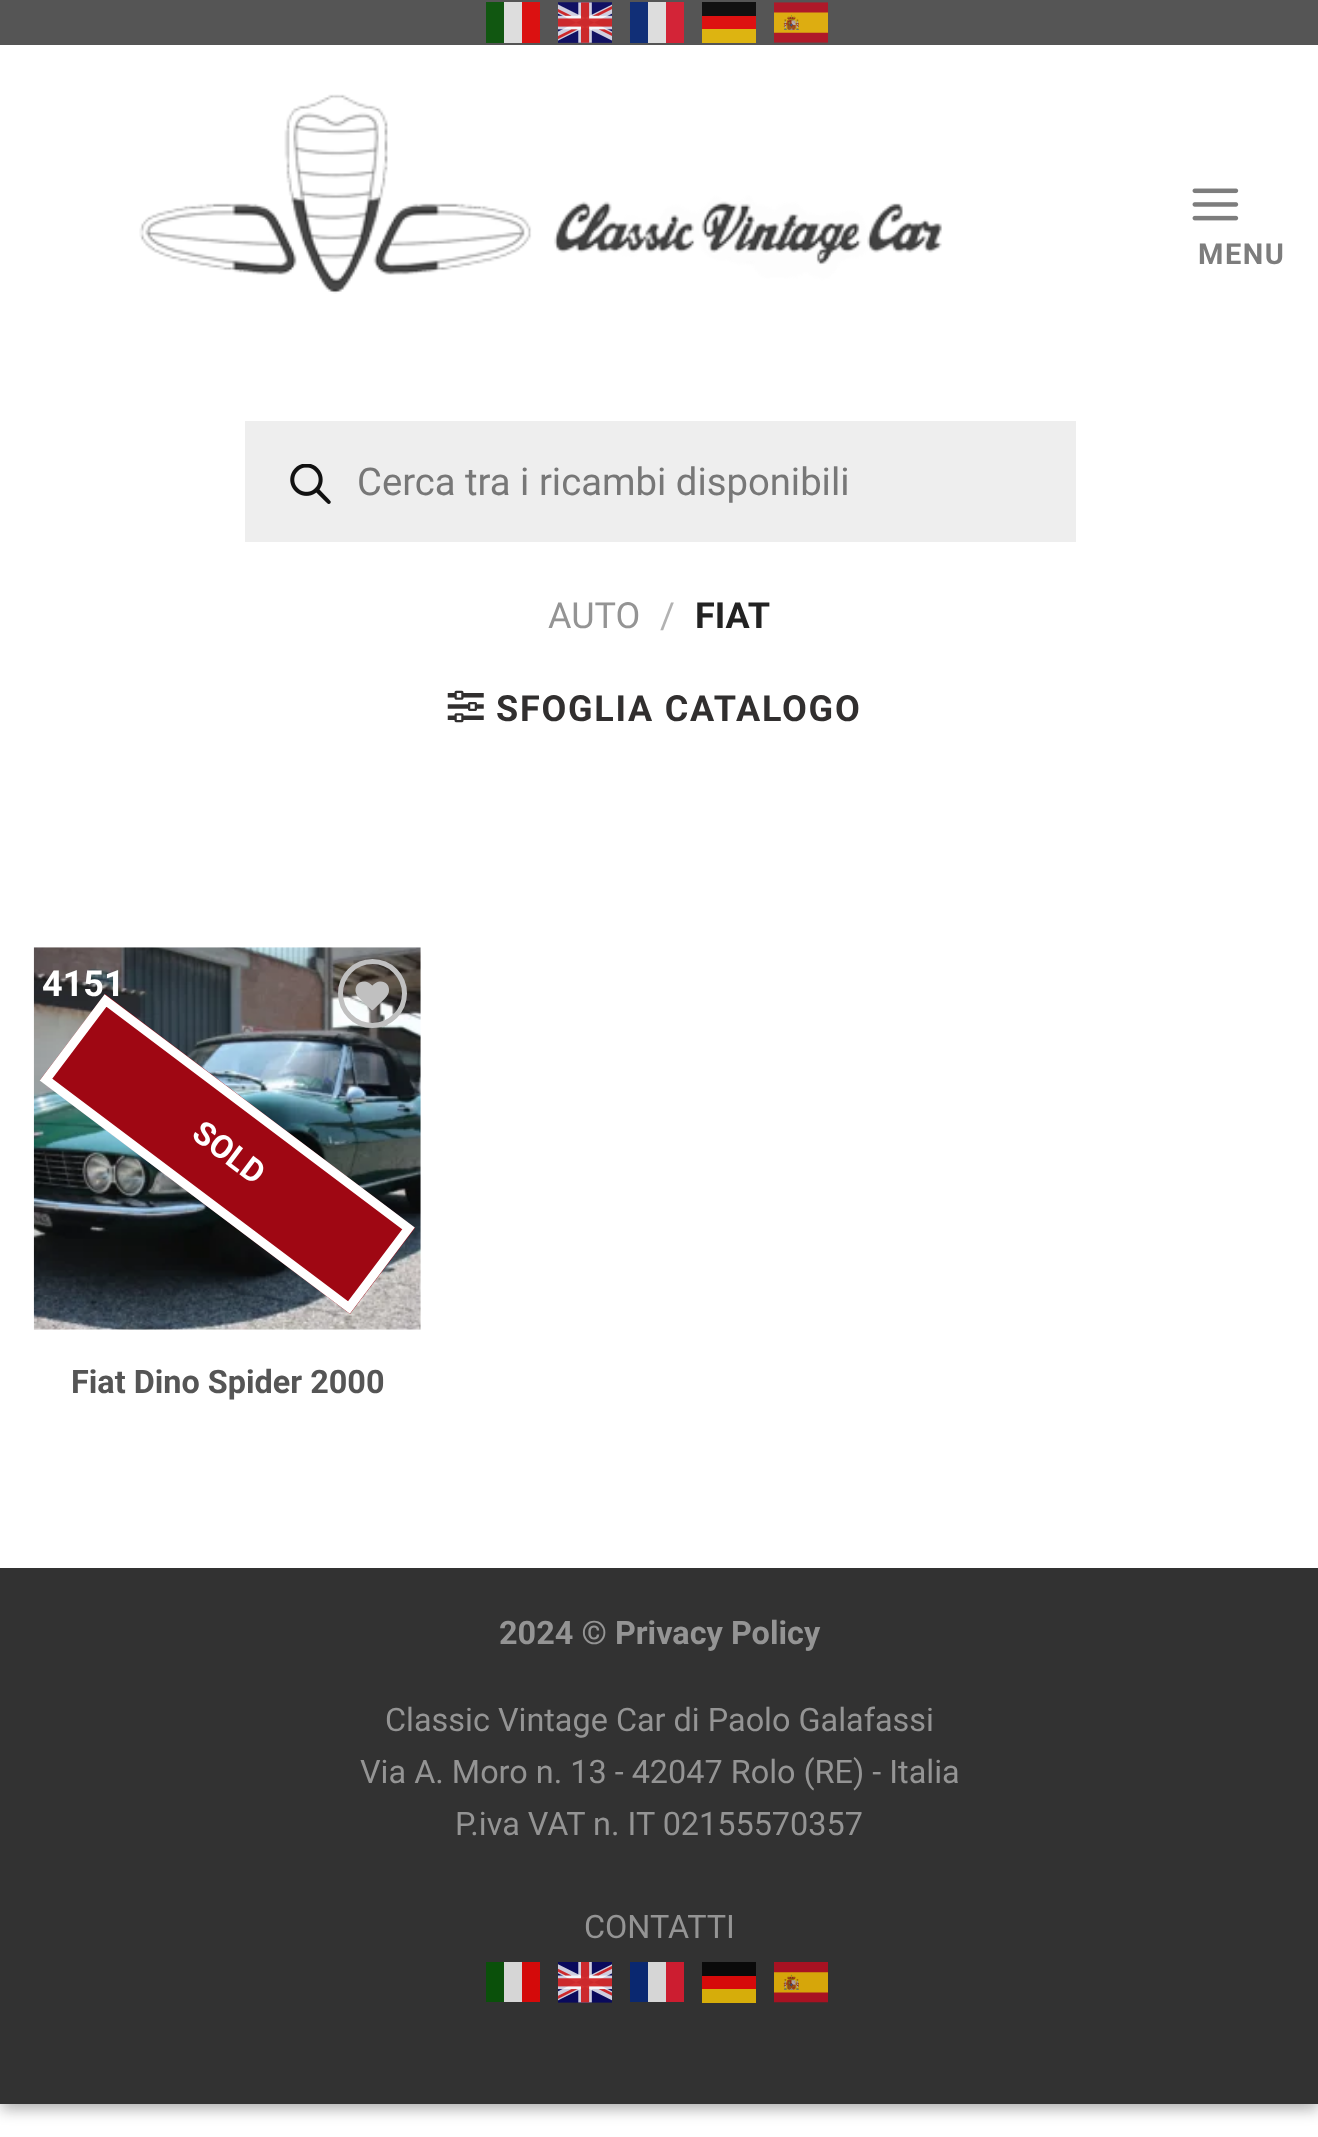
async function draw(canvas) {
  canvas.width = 1318
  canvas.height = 2137
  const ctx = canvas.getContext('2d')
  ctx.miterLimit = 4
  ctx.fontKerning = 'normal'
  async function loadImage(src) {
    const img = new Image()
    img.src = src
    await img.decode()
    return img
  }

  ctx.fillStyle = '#fff'
  ctx.fillRect(0, 0, 1318, 2137)
  ctx.fillStyle = '#0000003b'
  ctx.filter = 'blur(7px)'
  ctx.beginPath()
  ctx.rect(0, 7, 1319, 2104)
  ctx.fill()
  ctx.filter = 'none'
  ctx.fillStyle = '#00000029'
  ctx.filter = 'blur(7px)'
  ctx.beginPath()
  ctx.rect(9, 16, 1301, 2086)
  ctx.fill()
  ctx.filter = 'none'
  ctx.fillStyle = '#fff'
  ctx.fillRect(0, 45, 1318, 1523)
  ctx.fillStyle = '#555'
  ctx.fillRect(0, 0, 1318, 45)
  ctx.fillStyle = '#115711'
  ctx.fillRect(486, 2, 18, 41)
  ctx.fillStyle = '#ddd'
  ctx.fillRect(504, 2, 18, 41)
  ctx.fillStyle = '#db1111'
  ctx.fillRect(522, 2, 18, 41)
  ctx.drawImage(await loadImage('image0.png'), 558, 2, 54, 41)
  ctx.fillStyle = '#112f77'
  ctx.fillRect(630, 2, 18, 41)
  ctx.fillStyle = '#ddd'
  ctx.fillRect(648, 2, 18, 41)
  ctx.fillStyle = '#d32437'
  ctx.fillRect(666, 2, 18, 41)
  ctx.fillStyle = '#111'
  ctx.fillRect(702, 2, 54, 14)
  ctx.drawImage(await loadImage('image1.png'), 774, 2, 54, 41)
  ctx.fillStyle = '#d11'
  ctx.fillRect(702, 16, 54, 13)
  ctx.fillStyle = '#ddb411'
  ctx.fillRect(702, 29, 54, 14)
  ctx.drawImage(await loadImage('image2.png'), 139, 94, 803, 200)
  ctx.drawImage(await loadImage('image3.png'), 1192, 188, 47, 33)
  ctx.letterSpacing = '1.5px'
  ctx.font = 'bold 29px Roboto'
  ctx.fillStyle = '#7d7d7d'
  ctx.fillText('MENU', 1198, 264)
  ctx.fillStyle = '#eee'
  ctx.fillRect(245, 421, 831, 121)
  ctx.drawImage(await loadImage('image4.png'), 290, 464, 41, 40)
  ctx.letterSpacing = '0px'
  ctx.font = '38.25px Roboto'
  ctx.fillStyle = '#777'
  ctx.fillText('Cerca tra i ricambi disponibili', 357, 495)
  ctx.font = '36px Roboto'
  ctx.fillStyle = '#949494'
  ctx.fillText('AUTO', 548, 628)
  ctx.fillStyle = '#b2b2b2'
  ctx.fillText('/', 660, 628)
  ctx.font = 'bold 36px Roboto'
  ctx.fillStyle = '#222'
  ctx.fillText('FIAT', 695, 628)
  ctx.drawImage(await loadImage('image5.png'), 447, 690, 37, 33)
  ctx.letterSpacing = '1.75px'
  ctx.fillStyle = '#312f2f'
  ctx.fillText('SFOGLIA CATALOGO', 496, 721)
  ctx.drawImage(await loadImage('image6.png'), 33, 947, 388, 383)
  ctx.beginPath()
  ctx.arc(372.5, 993.5, 32, 0, 2 * Math.PI)
  ctx.strokeStyle = '#c0c0c0'
  ctx.lineWidth = 5
  ctx.stroke()
  ctx.drawImage(await loadImage('image7.png'), 355, 981, 34, 30)
  ctx.fillStyle = '#9f0713'
  ctx.beginPath()
  ctx.moveTo(105, 994)
  ctx.lineTo(415, 1228)
  ctx.lineTo(350, 1314)
  ctx.lineTo(40, 1080)
  ctx.closePath()
  ctx.fill()
  ctx.beginPath()
  ctx.moveTo(105.5, 1000.5)
  ctx.lineTo(408.5, 1228.5)
  ctx.lineTo(349, 1307.5)
  ctx.lineTo(46, 1079.5)
  ctx.closePath()
  ctx.strokeStyle = '#fff'
  ctx.lineWidth = 9
  ctx.stroke()
  ctx.letterSpacing = '0px'
  ctx.fillStyle = '#fff'
  ctx.fillText('4151', 42, 996)
  ctx.font = 'bold 32.4px Roboto'
  ctx.save()
  ctx.translate(190, 1137)
  ctx.rotate(37 * Math.PI / 180)
  ctx.fillText('SOLD', 0, 0)
  ctx.restore()
  ctx.fillStyle = '#555'
  ctx.fillText('Fiat Dino Spider 2000', 71, 1393)
  ctx.fillStyle = '#323232'
  ctx.fillRect(0, 1568, 1318, 536)
  ctx.fillStyle = '#949494'
  ctx.fillText('2024 © Privacy Policy', 499, 1644)
  ctx.font = '32.4px Roboto'
  ctx.fillText('Classic Vintage Car di Paolo Galafassi', 385, 1731)
  ctx.fillText('Via A. Moro n. 13 - 42047 Rolo (RE) - Italia', 360, 1783)
  ctx.fillText('P.iva VAT n. IT 02155570357', 455, 1835)
  ctx.fillText('CONTATTI', 584, 1938)
  ctx.fillStyle = '#0a500a'
  ctx.fillRect(486, 1962, 18, 40)
  ctx.fillStyle = '#d6d6d6'
  ctx.fillRect(504, 1962, 18, 40)
  ctx.fillStyle = '#d40a0a'
  ctx.fillRect(522, 1962, 18, 40)
  ctx.drawImage(await loadImage('image8.png'), 558, 1962, 54, 41)
  ctx.fillStyle = '#0a2870'
  ctx.fillRect(630, 1962, 18, 40)
  ctx.fillStyle = '#d6d6d6'
  ctx.fillRect(648, 1962, 18, 40)
  ctx.fillStyle = '#cc1d30'
  ctx.fillRect(666, 1962, 18, 40)
  ctx.fillStyle = '#0a0a0a'
  ctx.fillRect(702, 1962, 54, 14)
  ctx.drawImage(await loadImage('image9.png'), 774, 1962, 54, 41)
  ctx.fillStyle = '#d60a0a'
  ctx.fillRect(702, 1976, 54, 13)
  ctx.fillStyle = '#d6ad0a'
  ctx.fillRect(702, 1989, 54, 14)
}

draw(document.querySelector('canvas'))
